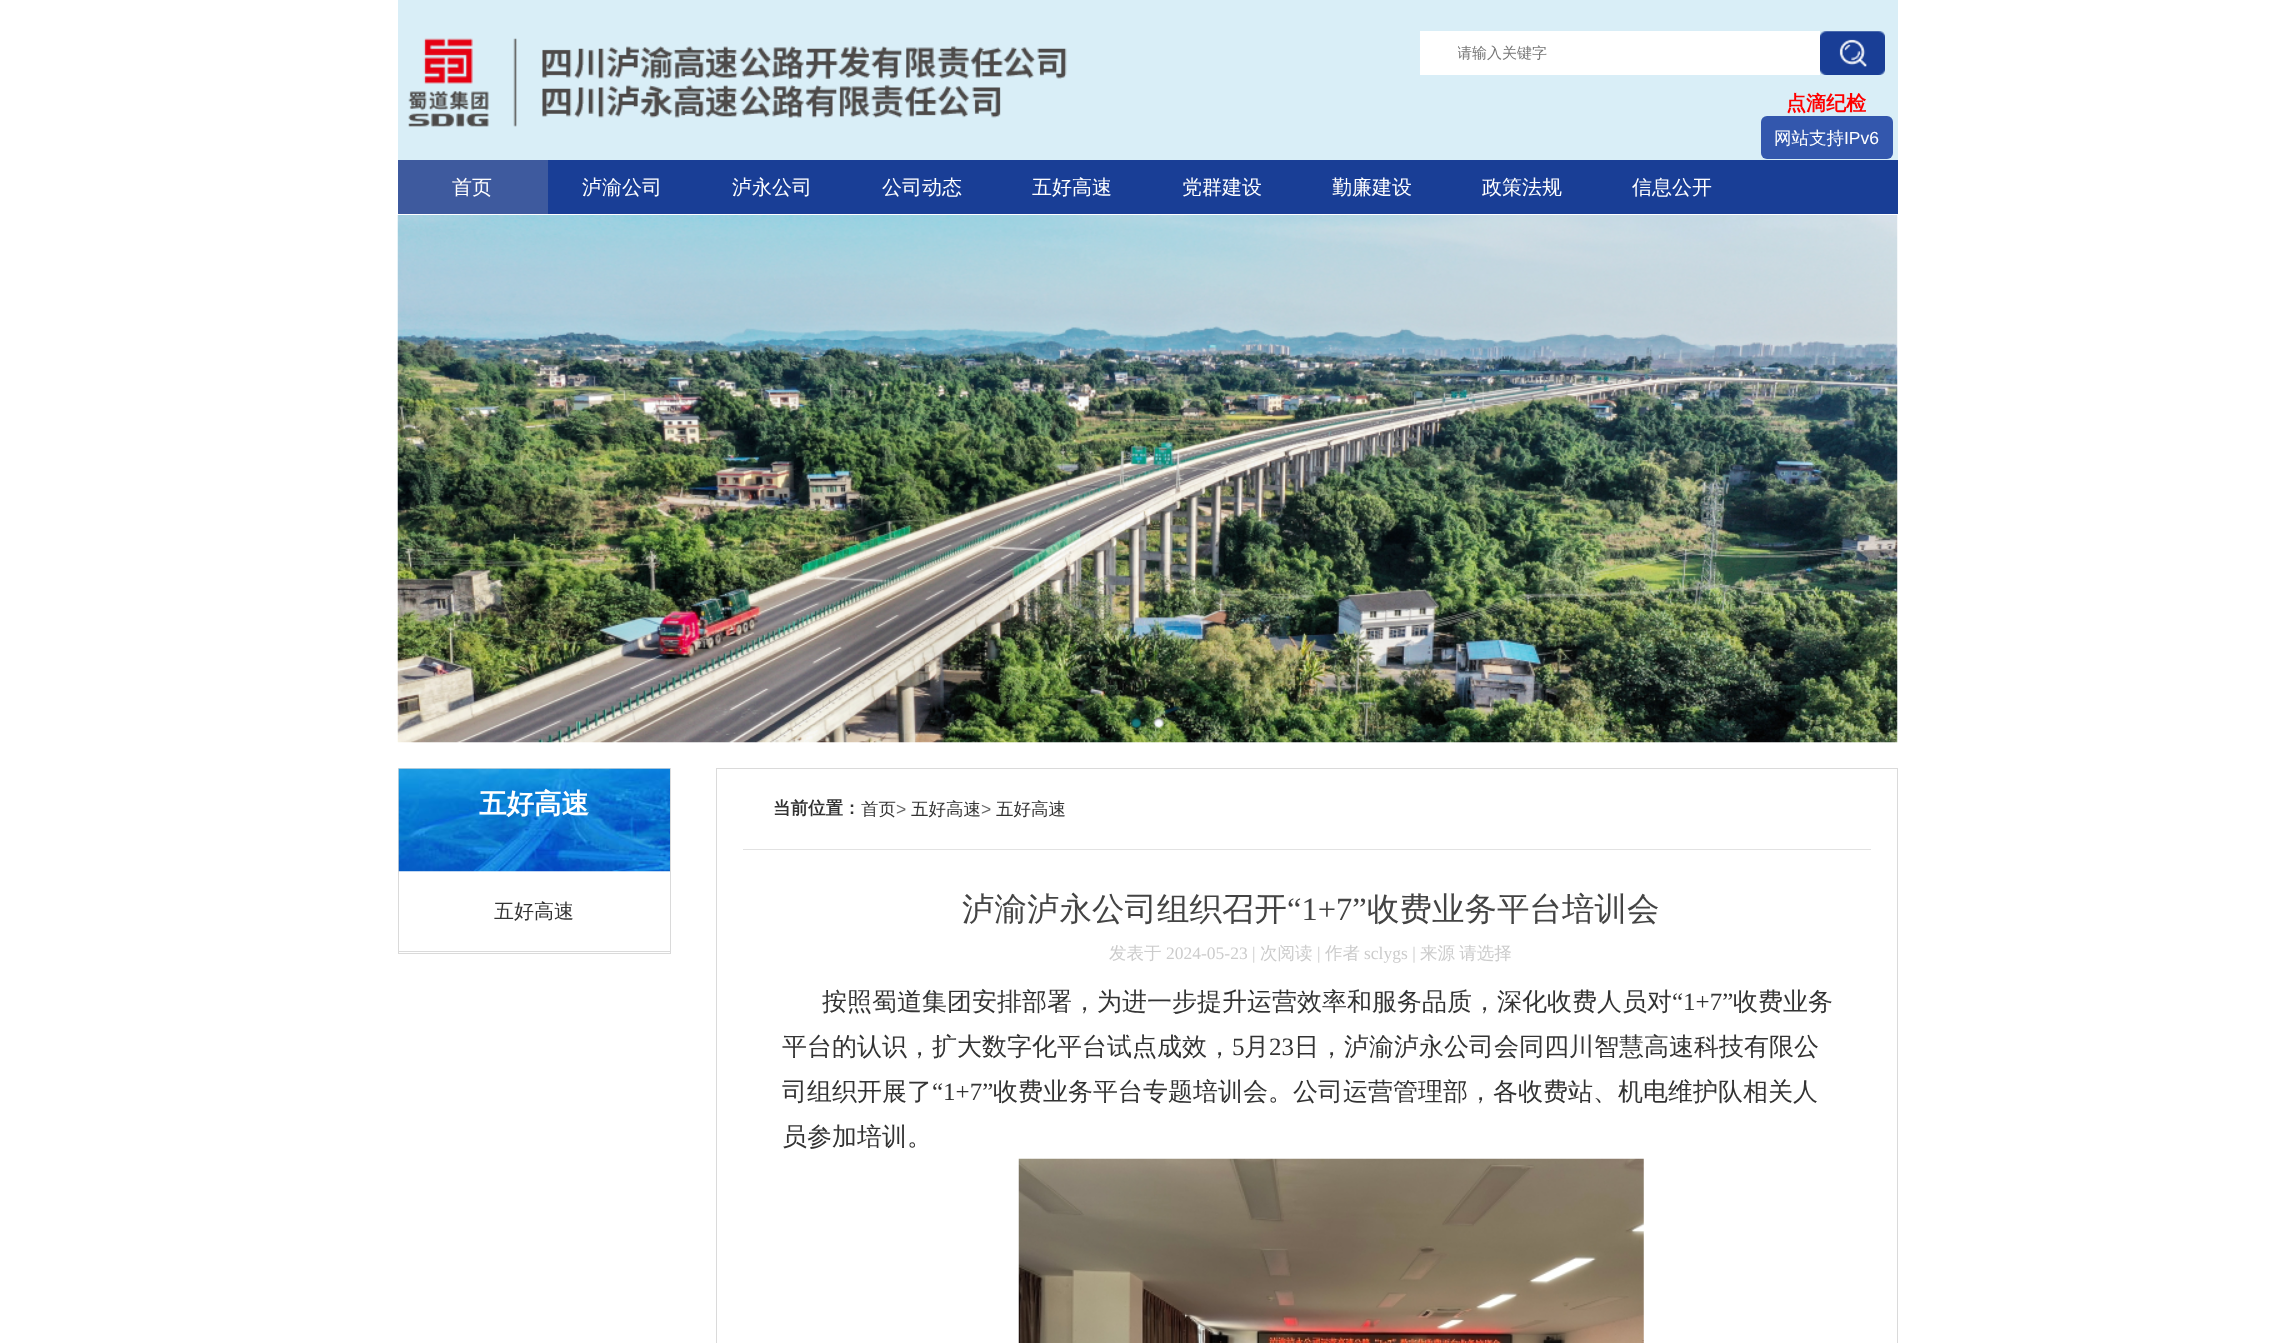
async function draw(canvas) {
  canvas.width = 2293
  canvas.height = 1343
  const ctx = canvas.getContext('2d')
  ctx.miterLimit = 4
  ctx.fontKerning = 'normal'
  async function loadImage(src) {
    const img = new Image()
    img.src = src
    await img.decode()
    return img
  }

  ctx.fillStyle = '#fff'
  ctx.fillRect(0, 0, 2293, 1343)
  ctx.fillStyle = '#d9eef7'
  ctx.fillRect(398, 0, 1500, 160)
  ctx.drawImage(await loadImage('image0.png'), 408, 38, 659, 89)
  ctx.fillStyle = '#fff'
  ctx.fillRect(1420, 31, 400, 44)
  ctx.save()
  ctx.beginPath()
  ctx.rect(1458, 44, 362, 21)
  ctx.clip()
  ctx.font = '500 15px WenQuanYi Zen Hei'
  ctx.fillStyle = '#757575'
  ctx.fillText('请输入关键字', 1457, 58)
  ctx.restore()
  ctx.drawImage(await loadImage('image1.png'), 1820, 31, 65, 44)
  ctx.font = 'bold 20px WenQuanYi Zen Hei'
  ctx.fillStyle = '#f00'
  ctx.fillText('点滴纪检', 1786, 110)
  ctx.fillStyle = '#193e96'
  ctx.fillRect(548, 160, 1350, 54)
  ctx.fillStyle = '#3357ad'
  ctx.beginPath()
  ctx.roundRect(1761, 116, 132, 43, 6)
  ctx.fill()
  ctx.font = '500 17.5px WenQuanYi Zen Hei'
  ctx.fillStyle = '#fff'
  ctx.fillText('网站支持', 1774, 144)
  ctx.font = '17.5px Liberation Sans'
  ctx.fillText('IPv6', 1844, 144)
  ctx.fillStyle = '#3e5a9e'
  ctx.fillRect(398, 160, 150, 54)
  ctx.font = '500 20px WenQuanYi Zen Hei'
  ctx.fillStyle = '#fff'
  ctx.fillText('首页', 452, 194)
  ctx.fillText('泸渝公司', 582, 194)
  ctx.fillText('泸永公司', 732, 194)
  ctx.fillText('公司动态', 882, 194)
  ctx.fillText('五好高速', 1032, 194)
  ctx.fillText('党群建设', 1182, 194)
  ctx.fillText('勤廉建设', 1332, 194)
  ctx.fillText('政策法规', 1482, 194)
  ctx.fillText('信息公开', 1632, 194)
  ctx.drawImage(await loadImage('image2.png'), 397, 215, 1501, 528)
  ctx.drawImage(await loadImage('image3.png'), 1131, 717, 11, 11)
  ctx.drawImage(await loadImage('image4.png'), 1153, 717, 11, 11)
  ctx.strokeStyle = '#dadada'
  ctx.strokeRect(398.5, 768.5, 272, 185)
  ctx.drawImage(await loadImage('image5.png'), 398, 768, 272, 104)
  ctx.font = 'bold 27.5px WenQuanYi Zen Hei'
  ctx.fillText('五好高速', 479, 813)
  ctx.fillStyle = '#dadada'
  ctx.fillRect(399, 951, 271, 1)
  ctx.font = '500 20px WenQuanYi Zen Hei'
  ctx.fillStyle = '#333'
  ctx.fillText('五好高速', 494, 918)
  ctx.strokeRect(716.5, 768.5, 1181, 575)
  ctx.fillStyle = '#e2e2e2'
  ctx.fillRect(743, 849, 1128, 1)
  ctx.font = 'bold 17.5px WenQuanYi Zen Hei'
  ctx.fillStyle = '#333'
  ctx.fillText('当前位置：', 773, 814)
  ctx.font = '500 17.5px WenQuanYi Zen Hei'
  ctx.fillText('首页', 861, 815)
  ctx.font = '17.5px Liberation Sans'
  ctx.fillStyle = '#666'
  ctx.fillText('>', 896, 815)
  ctx.font = '500 17.5px WenQuanYi Zen Hei'
  ctx.fillStyle = '#333'
  ctx.fillText('五好高速', 911, 815)
  ctx.font = '17.5px Liberation Sans'
  ctx.fillStyle = '#666'
  ctx.fillText('>', 981, 815)
  ctx.font = '500 17.5px WenQuanYi Zen Hei'
  ctx.fillStyle = '#333'
  ctx.fillText('五好高速', 996, 815)
  ctx.font = '500 32.5px WenQuanYi Zen Hei'
  ctx.fillStyle = '#444'
  ctx.fillText('泸渝泸永公司组织召开', 962, 920)
  ctx.font = '32.5px Liberation Serif'
  ctx.fillText('“1+7”', 1287, 920)
  ctx.font = '500 32.5px WenQuanYi Zen Hei'
  ctx.fillText('收费业务平台培训会', 1367, 920)
  ctx.font = '500 17.5px WenQuanYi Zen Hei'
  ctx.fillStyle = '#ccc'
  ctx.fillText('发表于', 1109, 959)
  ctx.font = '17.5px Liberation Serif'
  ctx.fillText('2024-05-23 |', 1166, 959)
  ctx.font = '500 17.5px WenQuanYi Zen Hei'
  ctx.fillText('次阅读', 1260, 959)
  ctx.font = '17.5px Liberation Serif'
  ctx.fillText('|', 1317, 959)
  ctx.font = '500 17.5px WenQuanYi Zen Hei'
  ctx.fillText('作者', 1325, 959)
  ctx.font = '17.5px Liberation Serif'
  ctx.fillText('sclygs |', 1364, 959)
  ctx.wordSpacing = '-1px'
  ctx.font = '500 17.5px WenQuanYi Zen Hei'
  ctx.fillText('来源 请选择', 1420, 959)
  ctx.wordSpacing = '0px'
  ctx.font = '500 25px WenQuanYi Zen Hei'
  ctx.fillStyle = '#333'
  ctx.fillText('按照蜀道集团安排部署，为进一步提升运营效率和服务品质，深化收费人员对', 822, 1010)
  ctx.font = '25px Liberation Serif'
  ctx.fillText('“1+7”', 1672, 1010)
  ctx.font = '500 25px WenQuanYi Zen Hei'
  ctx.fillText('收费业务', 1733, 1010)
  ctx.fillText('平台的认识，扩大数字化平台试点成效，', 782, 1055)
  ctx.font = '25px Liberation Serif'
  ctx.fillText('5', 1232, 1055)
  ctx.font = '500 25px WenQuanYi Zen Hei'
  ctx.fillText('月', 1244, 1055)
  ctx.font = '25px Liberation Serif'
  ctx.fillText('23', 1269, 1055)
  ctx.font = '500 25px WenQuanYi Zen Hei'
  ctx.fillText('日，泸渝泸永公司会同四川智慧高速科技有限公', 1294, 1055)
  ctx.fillText('司组织开展了', 782, 1100)
  ctx.font = '25px Liberation Serif'
  ctx.fillText('“1+7”', 932, 1100)
  ctx.font = '500 25px WenQuanYi Zen Hei'
  ctx.fillText('收费业务平台专题培训会。公司运营管理部，各收费站、机电维护队相关人', 993, 1100)
  ctx.fillText('员参加培训。', 782, 1145)
  ctx.drawImage(await loadImage('image6.png'), 1018, 1158, 626, 185)
}

draw(document.querySelector('canvas'))
